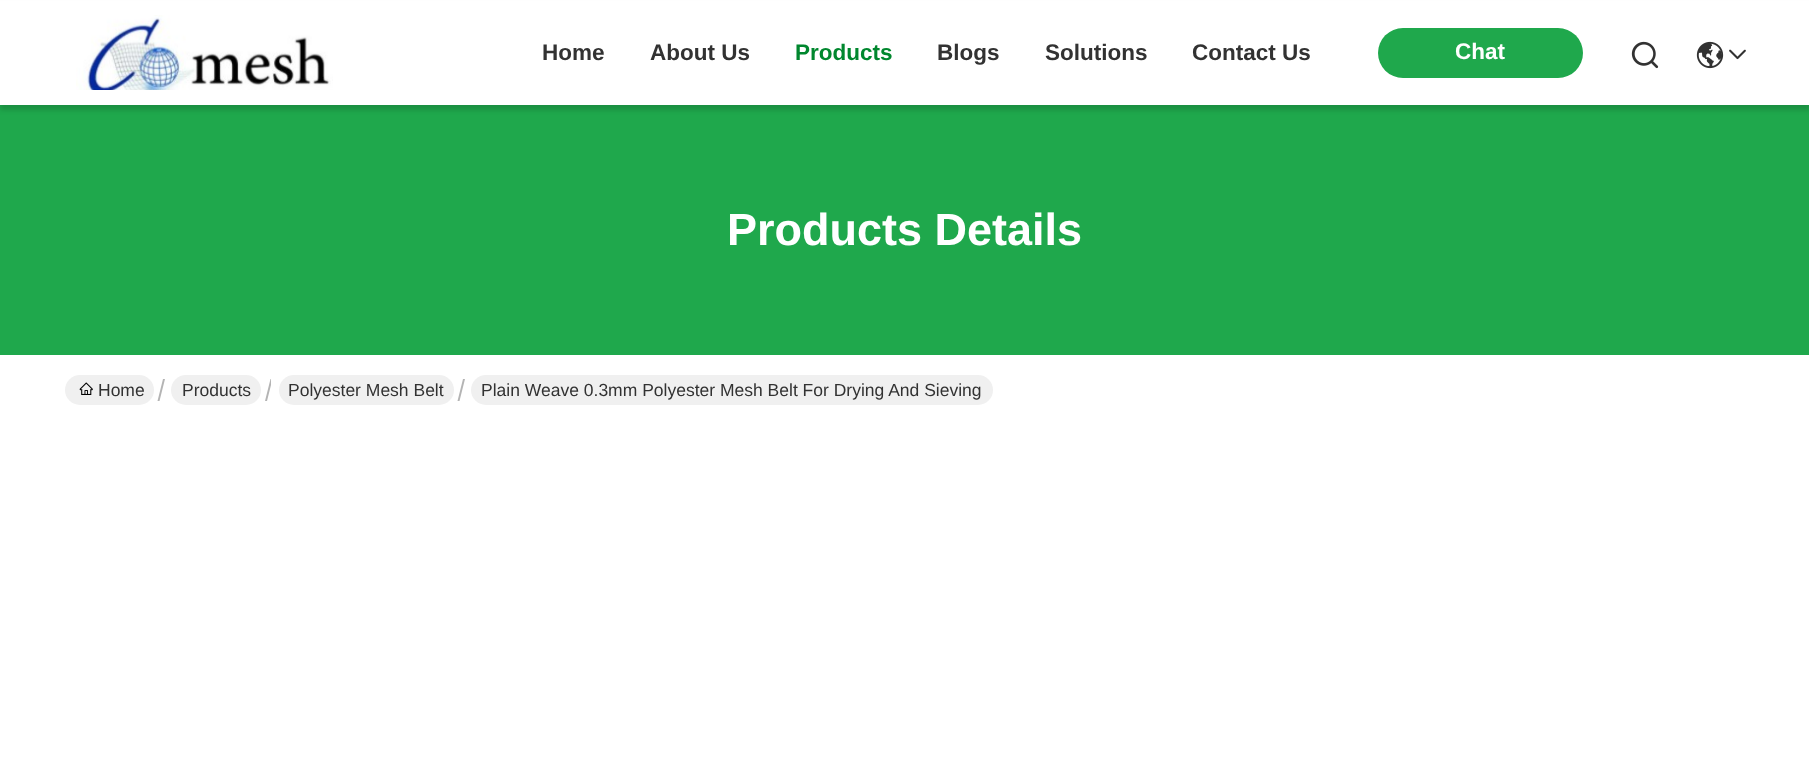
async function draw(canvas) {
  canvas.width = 1809
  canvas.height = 770
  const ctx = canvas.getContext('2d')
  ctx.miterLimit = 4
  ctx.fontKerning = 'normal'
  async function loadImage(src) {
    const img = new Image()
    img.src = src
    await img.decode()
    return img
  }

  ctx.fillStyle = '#fff'
  ctx.fillRect(0, 0, 1809, 770)
  ctx.fillStyle = '#1fa84c'
  ctx.fillRect(0, 105, 1809, 250)
  ctx.fillStyle = '#00000026'
  ctx.filter = 'blur(2.5px)'
  ctx.beginPath()
  ctx.rect(0, 5, 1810, 105)
  ctx.fill()
  ctx.filter = 'none'
  ctx.fillStyle = '#fff'
  ctx.fillRect(0, 1, 1809, 104)
  ctx.drawImage(await loadImage('image0.png'), 76, 15, 257, 75)
  ctx.font = 'bold 22.5px Liberation Sans'
  ctx.fillStyle = '#323232'
  ctx.fillText('Home', 542, 60)
  ctx.fillText('About Us', 650, 60)
  ctx.fillStyle = '#00872e'
  ctx.fillText('Products', 795, 60)
  ctx.fillStyle = '#323232'
  ctx.fillText('Blogs', 937, 60)
  ctx.fillText('Solutions', 1045, 60)
  ctx.fillText('Contact Us', 1192, 60)
  ctx.fillStyle = '#1fa84c'
  ctx.beginPath()
  ctx.roundRect(1378, 28, 205, 50, 25)
  ctx.fill()
  ctx.fillStyle = '#fff'
  ctx.fillText('Chat', 1455, 59)
  ctx.drawImage(await loadImage('image1.png'), 1631, 41, 28, 28)
  ctx.drawImage(await loadImage('image2.png'), 1696, 41, 28, 28)
  ctx.drawImage(await loadImage('image3.png'), 1729, 49, 17, 11)
  ctx.font = 'bold 45px Liberation Sans'
  ctx.fillText('Products Details', 727, 245)
  ctx.fillStyle = '#f0f0f0'
  ctx.beginPath()
  ctx.roundRect(65, 375, 89, 30, 15)
  ctx.fill()
  ctx.drawImage(await loadImage('image4.png'), 79, 382, 14, 13)
  ctx.font = '17.5px Liberation Sans'
  ctx.fillStyle = '#323232'
  ctx.fillText('Home', 98, 396)
  ctx.fillStyle = '#b4b4b4'
  ctx.beginPath()
  ctx.moveTo(165, 379)
  ctx.lineTo(159.5, 401)
  ctx.lineTo(157.5, 401)
  ctx.lineTo(163, 379)
  ctx.closePath()
  ctx.fill('evenodd')
  ctx.fillStyle = '#f0f0f0'
  ctx.beginPath()
  ctx.roundRect(171, 375, 90, 30, 15)
  ctx.fill()
  ctx.fillStyle = '#323232'
  ctx.fillText('Products', 182, 396)
  ctx.save()
  ctx.beginPath()
  ctx.rect(265, 379, 6, 22)
  ctx.clip()
  ctx.fillStyle = '#b4b4b4'
  ctx.beginPath()
  ctx.moveTo(272.5, 379)
  ctx.lineTo(267, 401)
  ctx.lineTo(265, 401)
  ctx.lineTo(270.5, 379)
  ctx.closePath()
  ctx.fill('evenodd')
  ctx.restore()
  ctx.fillStyle = '#f0f0f0'
  ctx.beginPath()
  ctx.roundRect(279, 375, 175, 30, 15)
  ctx.fill()
  ctx.fillStyle = '#323232'
  ctx.fillText('Polyester Mesh Belt', 288, 396)
  ctx.fillStyle = '#b4b4b4'
  ctx.beginPath()
  ctx.moveTo(465, 379)
  ctx.lineTo(459.5, 401)
  ctx.lineTo(457.5, 401)
  ctx.lineTo(463, 379)
  ctx.closePath()
  ctx.fill('evenodd')
  ctx.fillStyle = '#f0f0f0'
  ctx.beginPath()
  ctx.roundRect(471, 375, 522, 30, 15)
  ctx.fill()
  ctx.fillStyle = '#323232'
  ctx.fillText('Plain Weave 0.3mm Polyester Mesh Belt For Drying And Sieving', 481, 396)
}

draw(document.querySelector('canvas'))
